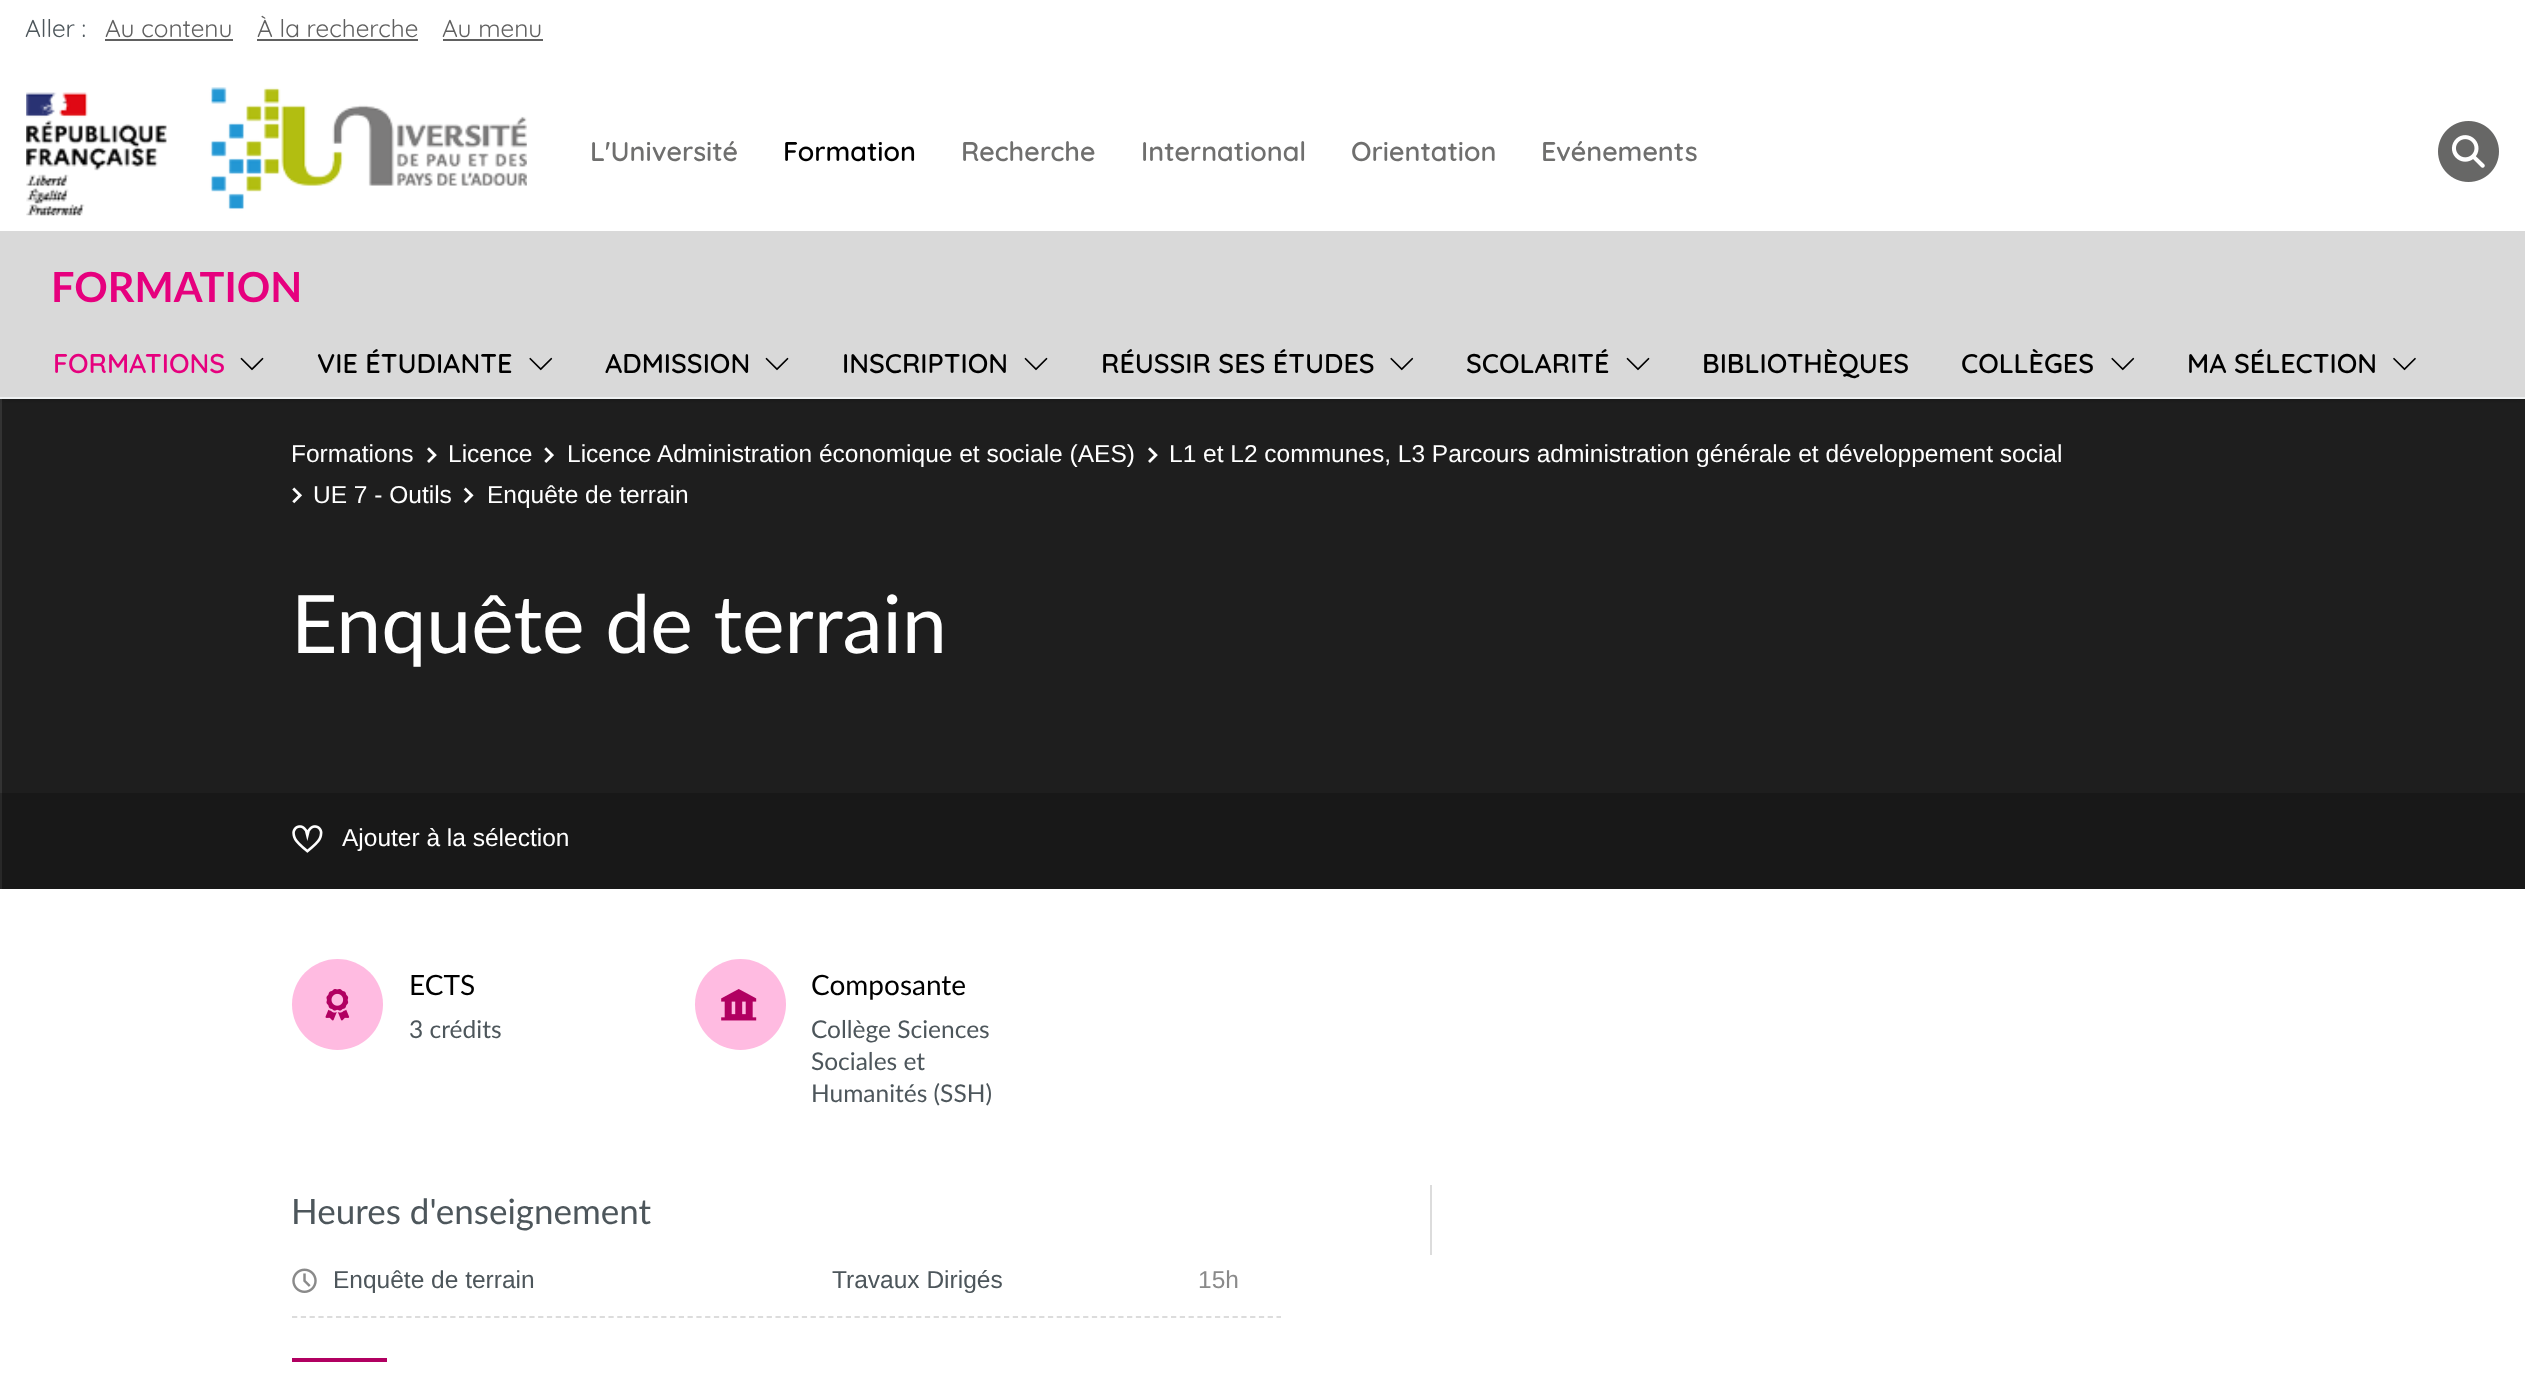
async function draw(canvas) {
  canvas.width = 2525
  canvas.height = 1378
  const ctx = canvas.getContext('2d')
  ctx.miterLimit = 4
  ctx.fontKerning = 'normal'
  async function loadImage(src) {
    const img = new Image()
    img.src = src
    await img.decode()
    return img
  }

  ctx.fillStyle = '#fff'
  ctx.fillRect(0, 0, 2525, 1378)
  ctx.save()
  ctx.beginPath()
  ctx.rect(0, 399, 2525, 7)
  ctx.clip()
  ctx.fillStyle = '#8a8a8a'
  ctx.filter = 'blur(4.5px)'
  ctx.beginPath()
  ctx.rect(0, 0, 2525, 397)
  ctx.fill()
  ctx.filter = 'none'
  ctx.restore()
  ctx.font = '300 24.5px Quicksand'
  ctx.fillStyle = '#4d565b'
  ctx.fillText('Aller :', 25, 37)
  ctx.fillStyle = '#606060'
  ctx.fillText('Au contenu', 105, 37)
  ctx.fillRect(105, 39, 128, 2)
  ctx.fillText('À la recherche', 257, 37)
  ctx.fillRect(257, 39, 161, 2)
  ctx.fillText('Au menu', 442, 37)
  ctx.fillRect(443, 39, 100, 2)
  ctx.drawImage(await loadImage('image0.png'), 26, 87, 501, 129)
  ctx.font = '600 27px Quicksand'
  ctx.fillStyle = '#6f6f6e'
  ctx.fillText('L\'Université', 590, 161)
  ctx.fillStyle = '#000'
  ctx.fillText('Formation', 783, 161)
  ctx.fillStyle = '#6f6f6e'
  ctx.fillText('Recherche', 961, 161)
  ctx.fillText('International', 1141, 161)
  ctx.fillText('Orientation', 1351, 161)
  ctx.fillText('Evénements', 1541, 161)
  ctx.drawImage(await loadImage('image1.png'), 2438, 121, 61, 61)
  ctx.fillStyle = '#d9d9d9'
  ctx.fillRect(0, 231, 2525, 166)
  ctx.font = 'bold 41.5px Lato'
  ctx.fillStyle = '#e6007e'
  ctx.fillText('FORMATION', 51, 302)
  ctx.font = '600 27px Quicksand'
  ctx.fillText('FORMATIONS', 53, 373)
  ctx.drawImage(await loadImage('image2.png'), 240, 357, 24, 14)
  ctx.fillStyle = '#000'
  ctx.fillText('VIE ÉTUDIANTE', 317, 373)
  ctx.drawImage(await loadImage('image3.png'), 529, 357, 24, 14)
  ctx.fillText('ADMISSION', 605, 373)
  ctx.drawImage(await loadImage('image4.png'), 765, 357, 24, 14)
  ctx.fillText('INSCRIPTION', 842, 373)
  ctx.drawImage(await loadImage('image4.png'), 1024, 357, 24, 14)
  ctx.fillText('RÉUSSIR SES ÉTUDES', 1101, 373)
  ctx.drawImage(await loadImage('image3.png'), 1390, 357, 24, 14)
  ctx.fillText('SCOLARITÉ', 1466, 373)
  ctx.drawImage(await loadImage('image4.png'), 1626, 357, 24, 14)
  ctx.fillText('BIBLIOTHÈQUES', 1702, 373)
  ctx.fillText('COLLÈGES', 1961, 373)
  ctx.drawImage(await loadImage('image3.png'), 2111, 357, 24, 14)
  ctx.fillText('MA SÉLECTION', 2187, 373)
  ctx.drawImage(await loadImage('image5.png'), 2393, 357, 23, 14)
  ctx.fillStyle = '#eff1f2'
  ctx.fillRect(0, 397, 2525, 2)
  ctx.fillStyle = '#000000cc'
  ctx.fillRect(0, 399, 2525, 490)
  ctx.fillStyle = '#00000066'
  ctx.fillRect(2, 399, 2523, 490)
  ctx.font = '24.5px Liberation Sans'
  ctx.fillStyle = '#fff'
  ctx.fillText('Formations', 291, 462)
  ctx.drawImage(await loadImage('image6.png'), 427, 447, 10, 16)
  ctx.fillText('Licence', 448, 462)
  ctx.drawImage(await loadImage('image7.png'), 544, 447, 10, 16)
  ctx.fillText('Licence Administration économique et sociale (AES)', 567, 462)
  ctx.drawImage(await loadImage('image6.png'), 1148, 447, 10, 16)
  ctx.fillText('L1 et L2 communes, L3 Parcours administration générale et développement social', 1169, 462)
  ctx.drawImage(await loadImage('image8.png'), 292, 487, 10, 17)
  ctx.fillText('UE 7 - Outils', 313, 503)
  ctx.drawImage(await loadImage('image9.png'), 463, 487, 11, 17)
  ctx.fillText('Enquête de terrain', 487, 503)
  ctx.font = '80.5px Lato'
  ctx.fillText('Enquête de terrain', 291, 653)
  ctx.fillStyle = '#00000033'
  ctx.fillRect(0, 793, 2525, 96)
  ctx.drawImage(await loadImage('image10.png'), 292, 825, 31, 28)
  ctx.font = '24.5px Liberation Sans'
  ctx.fillStyle = '#fff'
  ctx.fillText('Ajouter à la sélection', 342, 846)
  ctx.fillStyle = '#ffbbe1'
  ctx.beginPath()
  ctx.arc(337.5, 1004.5, 45.5, 0, 2 * Math.PI)
  ctx.fill()
  ctx.drawImage(await loadImage('image11.png'), 325, 989, 25, 32)
  ctx.font = '28px Lato'
  ctx.fillStyle = '#000'
  ctx.fillText('ECTS', 409, 995)
  ctx.font = '24.5px Lato'
  ctx.fillStyle = '#4d565b'
  ctx.fillText('3 crédits', 409, 1038)
  ctx.fillStyle = '#ffbbe1'
  ctx.beginPath()
  ctx.arc(740.5, 1004.5, 45.5, 0, 2 * Math.PI)
  ctx.fill()
  ctx.drawImage(await loadImage('image12.png'), 721, 989, 36, 32)
  ctx.font = '28px Lato'
  ctx.fillStyle = '#000'
  ctx.fillText('Composante', 811, 995)
  ctx.font = '24.5px Lato'
  ctx.fillStyle = '#4d565b'
  ctx.fillText('Collège Sciences', 811, 1038)
  ctx.fillText('Sociales et', 811, 1070)
  ctx.fillText('Humanités (SSH)', 811, 1102)
  ctx.font = '35px Lato'
  ctx.fillText('Heures d\'enseignement', 291, 1224)
  ctx.beginPath()
  ctx.moveTo(292, 1317)
  ctx.lineTo(1281, 1317)
  ctx.strokeStyle = '#dcdcdc'
  ctx.lineWidth = 1.8
  ctx.setLineDash([5.25, 3.54])
  ctx.stroke()
  ctx.drawImage(await loadImage('image13.png'), 292, 1268, 25, 25)
  ctx.font = '24.5px Liberation Sans'
  ctx.fillText('Enquête de terrain', 333, 1288)
  ctx.fillText('Travaux Dirigés', 832, 1288)
  ctx.fillStyle = '#8a8a8a'
  ctx.fillText('15h', 1198, 1288)
  ctx.fillStyle = '#b10061'
  ctx.fillRect(292, 1358, 95, 4)
  ctx.fillStyle = '#dcdcdc'
  ctx.fillRect(1430, 1185, 2, 70)
}

draw(document.querySelector('canvas'))
